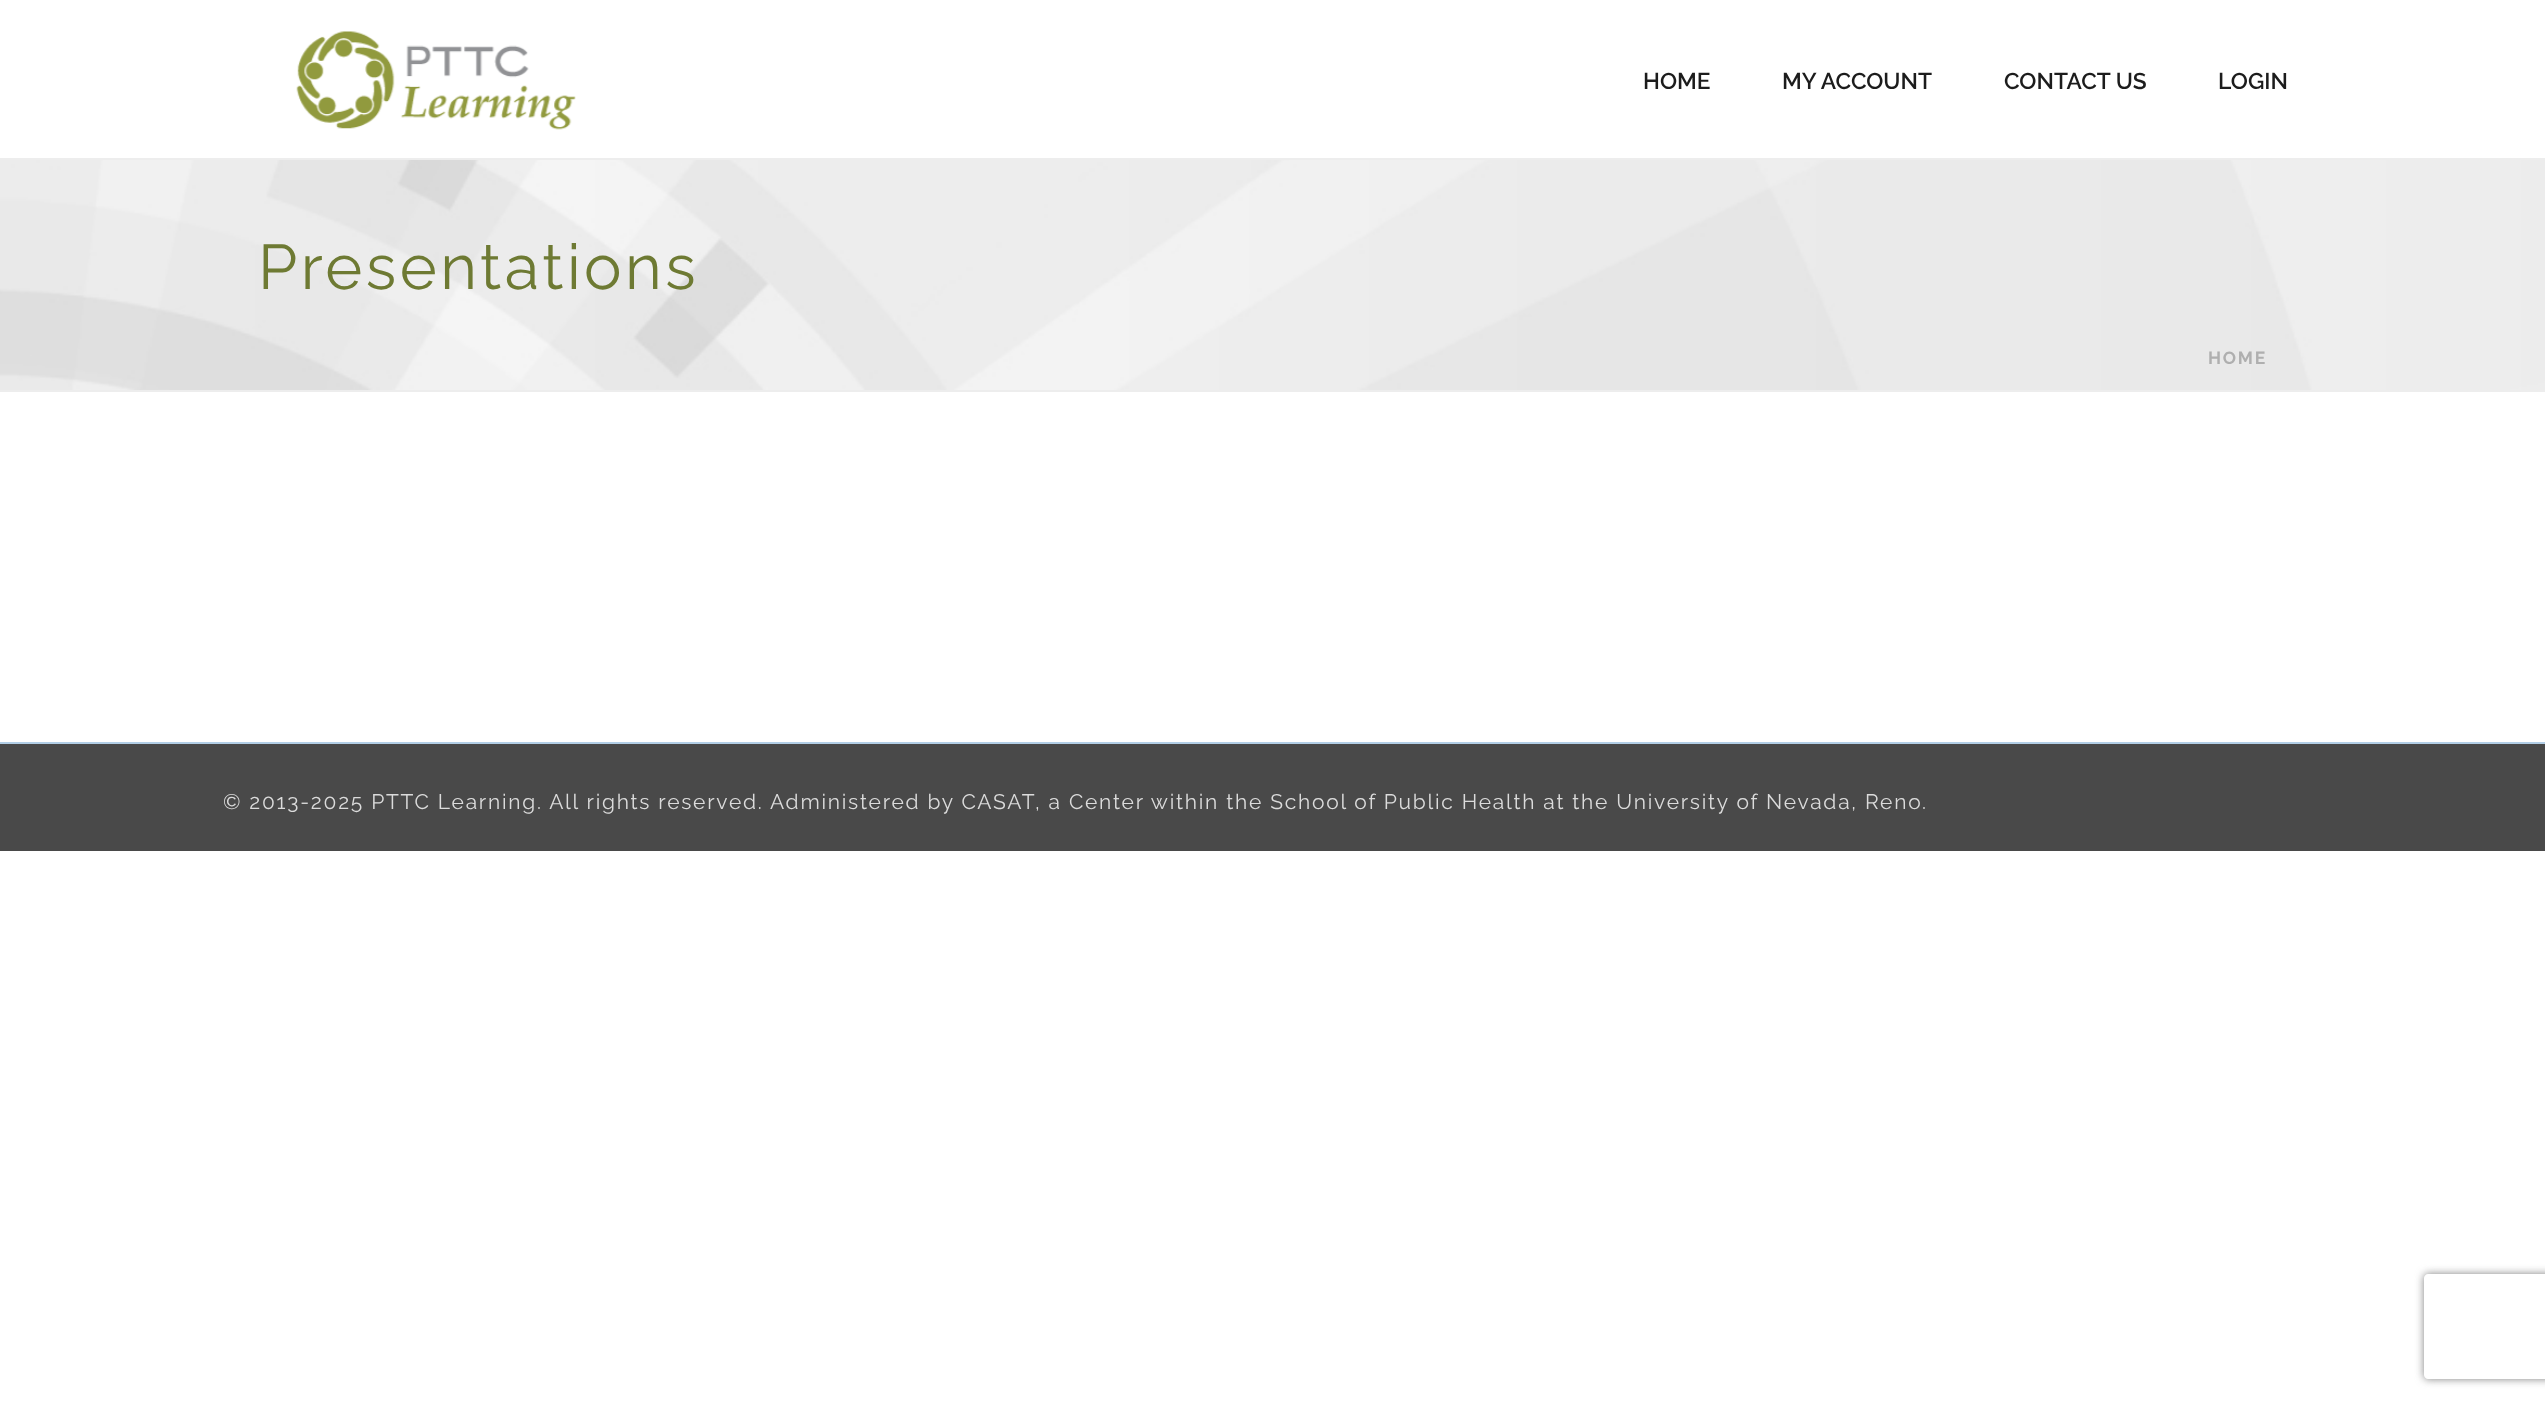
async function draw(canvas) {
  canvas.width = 2545
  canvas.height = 1402
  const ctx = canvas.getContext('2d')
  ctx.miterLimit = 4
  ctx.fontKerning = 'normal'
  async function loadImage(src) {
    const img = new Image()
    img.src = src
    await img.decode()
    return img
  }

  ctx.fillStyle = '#fff'
  ctx.fillRect(0, 0, 2545, 1402)
  ctx.drawImage(await loadImage('image0.png'), 0, 160, 2545, 230)
  ctx.fillStyle = '#ededed'
  ctx.fillRect(0, 390, 2545, 2)
  ctx.fillRect(0, 158, 2545, 2)
  ctx.drawImage(await loadImage('image1.png'), 296, 31, 280, 99)
  ctx.font = '600 22.75px Raleway'
  ctx.fillStyle = '#1c1c1c'
  ctx.fillText('HOME', 1643, 89)
  ctx.fillText('MY ACCOUNT', 1782, 89)
  ctx.fillText('CONTACT US', 2004, 89)
  ctx.fillText('LOGIN', 2218, 89)
  ctx.letterSpacing = '3.5px'
  ctx.font = '63px Raleway'
  ctx.fillStyle = '#6e7a33'
  ctx.fillText('Presentations', 258, 289)
  ctx.letterSpacing = '1.75px'
  ctx.font = 'bold 17.5px Raleway'
  ctx.fillStyle = '#afafaf'
  ctx.fillText('HOME', 2208, 364)
  ctx.fillStyle = '#b2cee6'
  ctx.fillRect(0, 742, 2545, 2)
  ctx.fillStyle = '#494949'
  ctx.fillRect(0, 744, 2545, 107)
  ctx.font = '21px Raleway'
  ctx.fillStyle = '#dbdbdb'
  ctx.fillText('© 2013-2025 PTTC Learning. All rights reserved. Administered by CASAT', 223, 809)
  ctx.fillText(', a Center within the School of Public Health at the University of Nevada, Reno.', 1035, 809)
  ctx.save()
  ctx.beginPath()
  ctx.moveTo(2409, 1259)
  ctx.lineTo(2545, 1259)
  ctx.lineTo(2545, 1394)
  ctx.lineTo(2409, 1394)
  ctx.closePath()
  ctx.moveTo(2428, 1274)
  ctx.lineTo(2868, 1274)
  ctx.bezierCurveTo(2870, 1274, 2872, 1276, 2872, 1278)
  ctx.lineTo(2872, 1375)
  ctx.bezierCurveTo(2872, 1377, 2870, 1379, 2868, 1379)
  ctx.lineTo(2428, 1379)
  ctx.bezierCurveTo(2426, 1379, 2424, 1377, 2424, 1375)
  ctx.lineTo(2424, 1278)
  ctx.bezierCurveTo(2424, 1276, 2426, 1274, 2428, 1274)
  ctx.closePath()
  ctx.clip('evenodd')
  ctx.fillStyle = '#808080'
  ctx.filter = 'blur(4.5px)'
  ctx.beginPath()
  ctx.roundRect(2424, 1274, 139, 105, 4)
  ctx.fill()
  ctx.filter = 'none'
  ctx.restore()
}

draw(document.querySelector('canvas'))
